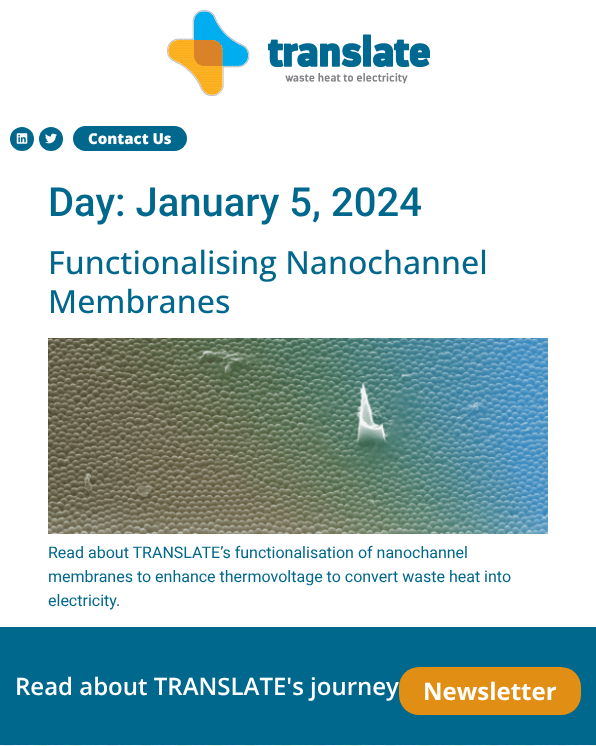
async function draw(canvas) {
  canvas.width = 596
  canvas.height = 746
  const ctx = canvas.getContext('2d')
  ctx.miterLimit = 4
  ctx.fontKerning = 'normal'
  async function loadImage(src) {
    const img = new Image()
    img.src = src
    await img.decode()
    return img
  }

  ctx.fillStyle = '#fff'
  ctx.fillRect(0, 0, 596, 746)
  ctx.drawImage(await loadImage('image0.png'), 167, 10, 263, 86)
  ctx.fillStyle = '#00678d'
  ctx.beginPath()
  ctx.arc(22, 139, 12, 0, 2 * Math.PI)
  ctx.fill()
  ctx.drawImage(await loadImage('image1.png'), 16, 133, 12, 11)
  ctx.beginPath()
  ctx.arc(51, 139, 12, 0, 2 * Math.PI)
  ctx.fill()
  ctx.drawImage(await loadImage('image2.png'), 45, 133, 12, 11)
  ctx.beginPath()
  ctx.roundRect(73, 126, 114, 25, 12.5)
  ctx.fill()
  ctx.font = '800 15px Open Sans'
  ctx.fillStyle = '#fff'
  ctx.fillText('Contact Us', 88, 144)
  ctx.font = '500 40px Roboto'
  ctx.fillStyle = '#00678d'
  ctx.fillText('Day: January 5, 2024', 48, 216)
  ctx.font = '500 32px Open Sans'
  ctx.fillText('Functionalising Nanochannel', 48, 274)
  ctx.fillText('Membranes', 48, 313)
  ctx.drawImage(await loadImage('image3.png'), 48, 338, 500, 196)
  ctx.font = '16px Roboto'
  ctx.fillText('Read about TRANSLATE’s functionalisation of nanochannel', 48, 558)
  ctx.fillText('membranes to enhance thermovoltage to convert waste heat into', 48, 582)
  ctx.fillText('electricity.', 48, 606)
  ctx.fillRect(0, 627, 596, 118)
  ctx.font = '600 24px Open Sans'
  ctx.fillStyle = '#fff'
  ctx.fillText('Read about TRANSLATE\'s journey', 15, 695)
  ctx.fillStyle = '#e18e14'
  ctx.beginPath()
  ctx.roundRect(399, 667, 182, 48, 20)
  ctx.fill()
  ctx.font = 'bold 24px Open Sans'
  ctx.fillStyle = '#fff'
  ctx.fillText('Newsletter', 423, 700)
  ctx.drawImage(await loadImage('image4.png'), 0, 745, 596, 1)
}

draw(document.querySelector('canvas'))
